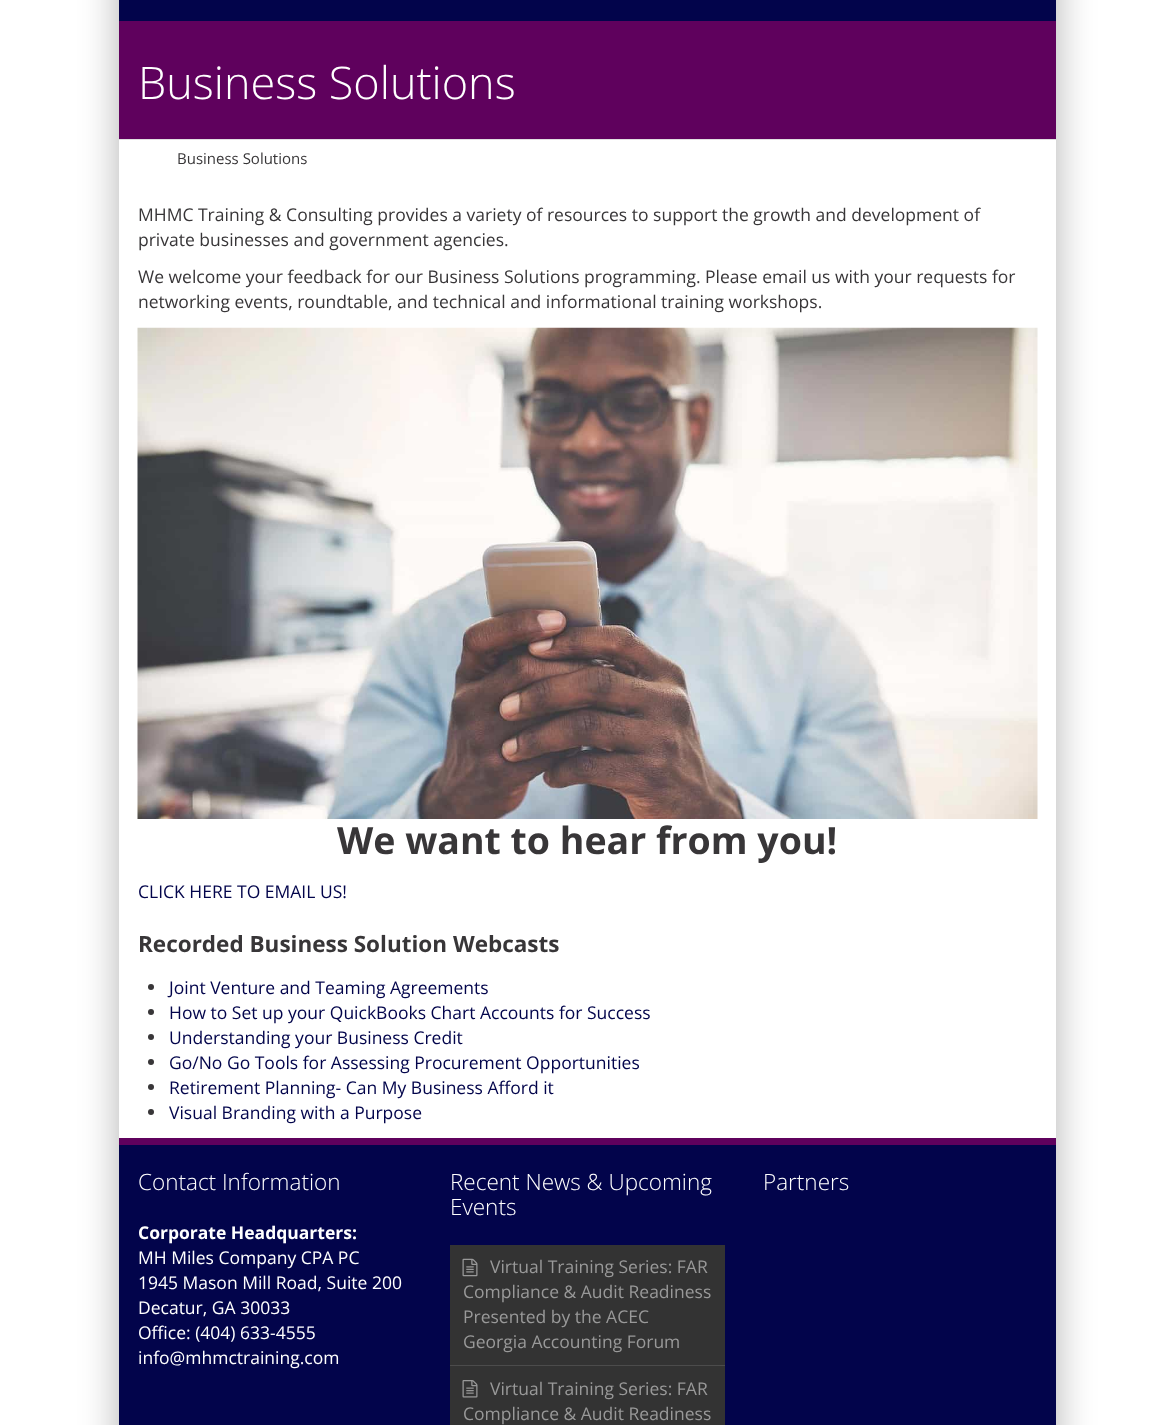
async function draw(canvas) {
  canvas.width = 1175
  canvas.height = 1425
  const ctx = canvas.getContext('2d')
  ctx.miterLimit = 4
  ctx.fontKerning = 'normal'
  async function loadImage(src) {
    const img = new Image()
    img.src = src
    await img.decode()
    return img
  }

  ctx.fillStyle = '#fff'
  ctx.fillRect(0, 0, 1175, 1425)
  ctx.save()
  ctx.beginPath()
  ctx.moveTo(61, 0)
  ctx.lineTo(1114, 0)
  ctx.lineTo(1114, 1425)
  ctx.lineTo(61, 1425)
  ctx.closePath()
  ctx.moveTo(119, -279)
  ctx.lineTo(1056, -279)
  ctx.lineTo(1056, 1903)
  ctx.lineTo(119, 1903)
  ctx.closePath()
  ctx.clip('evenodd')
  ctx.fillStyle = '#0000004d'
  ctx.filter = 'blur(19px)'
  ctx.beginPath()
  ctx.rect(119, -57, 937, 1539)
  ctx.fill()
  ctx.filter = 'none'
  ctx.restore()
  ctx.fillStyle = '#02044b'
  ctx.fillRect(119, 0, 937, 21)
  ctx.fillStyle = '#5f015d'
  ctx.fillRect(119, 21, 937, 118)
  ctx.font = '300 45px Open Sans'
  ctx.fillStyle = '#fff'
  ctx.fillText('Business Solutions', 138, 99)
  ctx.fillStyle = '#e0e0e0'
  ctx.fillRect(119, 139, 937, 1)
  ctx.font = '15px Open Sans'
  ctx.fillStyle = '#383638'
  ctx.fillText('Business Solutions', 177, 164)
  ctx.font = '17.5px Open Sans'
  ctx.fillText('MHMC Training & Consulting provides a variety of resources to support the growth and development of', 138, 221)
  ctx.fillText('private businesses and government agencies.', 138, 246)
  ctx.fillText('We welcome your feedback for our Business Solutions programming. Please email us with your requests for', 138, 283)
  ctx.fillText('networking events, roundtable, and technical and informational training workshops.', 138, 308)
  ctx.drawImage(await loadImage('image0.png'), 137, 327, 901, 492)
  ctx.font = 'bold 37.5px Open Sans'
  ctx.fillText('We want to hear from you!', 337, 854)
  ctx.font = '17.5px Open Sans'
  ctx.fillStyle = '#02044b'
  ctx.fillText('CLICK HERE TO EMAIL US!', 138, 898)
  ctx.font = 'bold 22.5px Open Sans'
  ctx.fillStyle = '#383638'
  ctx.fillText('Recorded Business Solution Webcasts', 138, 952)
  ctx.beginPath()
  ctx.arc(151, 987, 3, 0, 2 * Math.PI)
  ctx.fill()
  ctx.font = '17.5px Open Sans'
  ctx.fillStyle = '#02044b'
  ctx.fillText('Joint Venture and Teaming Agreements', 169, 994)
  ctx.fillStyle = '#383638'
  ctx.beginPath()
  ctx.arc(151, 1012, 3, 0, 2 * Math.PI)
  ctx.fill()
  ctx.fillStyle = '#02044b'
  ctx.fillText('How to Set up your QuickBooks Chart Accounts for Success', 169, 1019)
  ctx.fillStyle = '#383638'
  ctx.beginPath()
  ctx.arc(151, 1037, 3, 0, 2 * Math.PI)
  ctx.fill()
  ctx.fillStyle = '#02044b'
  ctx.fillText('Understanding your Business Credit', 169, 1044)
  ctx.fillStyle = '#383638'
  ctx.beginPath()
  ctx.arc(151, 1062, 3, 0, 2 * Math.PI)
  ctx.fill()
  ctx.fillStyle = '#02044b'
  ctx.fillText('Go/No Go Tools for Assessing Procurement Opportunities', 169, 1069)
  ctx.fillStyle = '#383638'
  ctx.beginPath()
  ctx.arc(151, 1087, 3, 0, 2 * Math.PI)
  ctx.fill()
  ctx.fillStyle = '#02044b'
  ctx.fillText('Retirement Planning- Can My Business Afford it', 169, 1094)
  ctx.fillStyle = '#383638'
  ctx.beginPath()
  ctx.arc(151, 1112, 3, 0, 2 * Math.PI)
  ctx.fill()
  ctx.fillStyle = '#02044b'
  ctx.fillText('Visual Branding with a Purpose', 169, 1119)
  ctx.fillRect(119, 1145, 937, 280)
  ctx.fillStyle = '#5f015d'
  ctx.fillRect(119, 1138, 937, 7)
  ctx.font = '300 22.5px Open Sans'
  ctx.fillStyle = '#fff'
  ctx.fillText('Contact Information', 138, 1190)
  ctx.font = 'bold 17.5px Open Sans'
  ctx.fillText('Corporate Headquarters:', 138, 1239)
  ctx.font = '17.5px Open Sans'
  ctx.fillText('MH Miles Company CPA PC', 138, 1264)
  ctx.fillText('1945 Mason Mill Road, Suite 200', 138, 1289)
  ctx.fillText('Decatur, GA 30033', 138, 1314)
  ctx.fillText('Office: (404) 633-4555', 138, 1339)
  ctx.fillText('info@mhmctraining.com', 138, 1364)
  ctx.font = '300 22.5px Open Sans'
  ctx.fillText('Recent News & Upcoming', 450, 1190)
  ctx.fillText('Events', 450, 1215)
  ctx.fillStyle = '#333'
  ctx.fillRect(450, 1245, 275, 120)
  ctx.fillStyle = '#4c4c4c'
  ctx.fillRect(450, 1365, 275, 1)
  ctx.drawImage(await loadImage('image1.png'), 462, 1258, 16, 19)
  ctx.font = '17.5px Open Sans'
  ctx.fillStyle = '#999'
  ctx.fillText('Virtual Training Series: FAR', 490, 1273)
  ctx.fillText('Compliance & Audit Readiness', 463, 1298)
  ctx.fillText('Presented by the ACEC', 463, 1323)
  ctx.fillText('Georgia Accounting Forum', 463, 1348)
  ctx.fillStyle = '#333'
  ctx.fillRect(450, 1366, 275, 59)
  ctx.drawImage(await loadImage('image2.png'), 462, 1380, 16, 18)
  ctx.fillStyle = '#999'
  ctx.fillText('Virtual Training Series: FAR', 490, 1395)
  ctx.fillText('Compliance & Audit Readiness', 463, 1420)
  ctx.font = '300 22.5px Open Sans'
  ctx.fillStyle = '#fff'
  ctx.fillText('Partners', 763, 1190)
}

draw(document.querySelector('canvas'))
